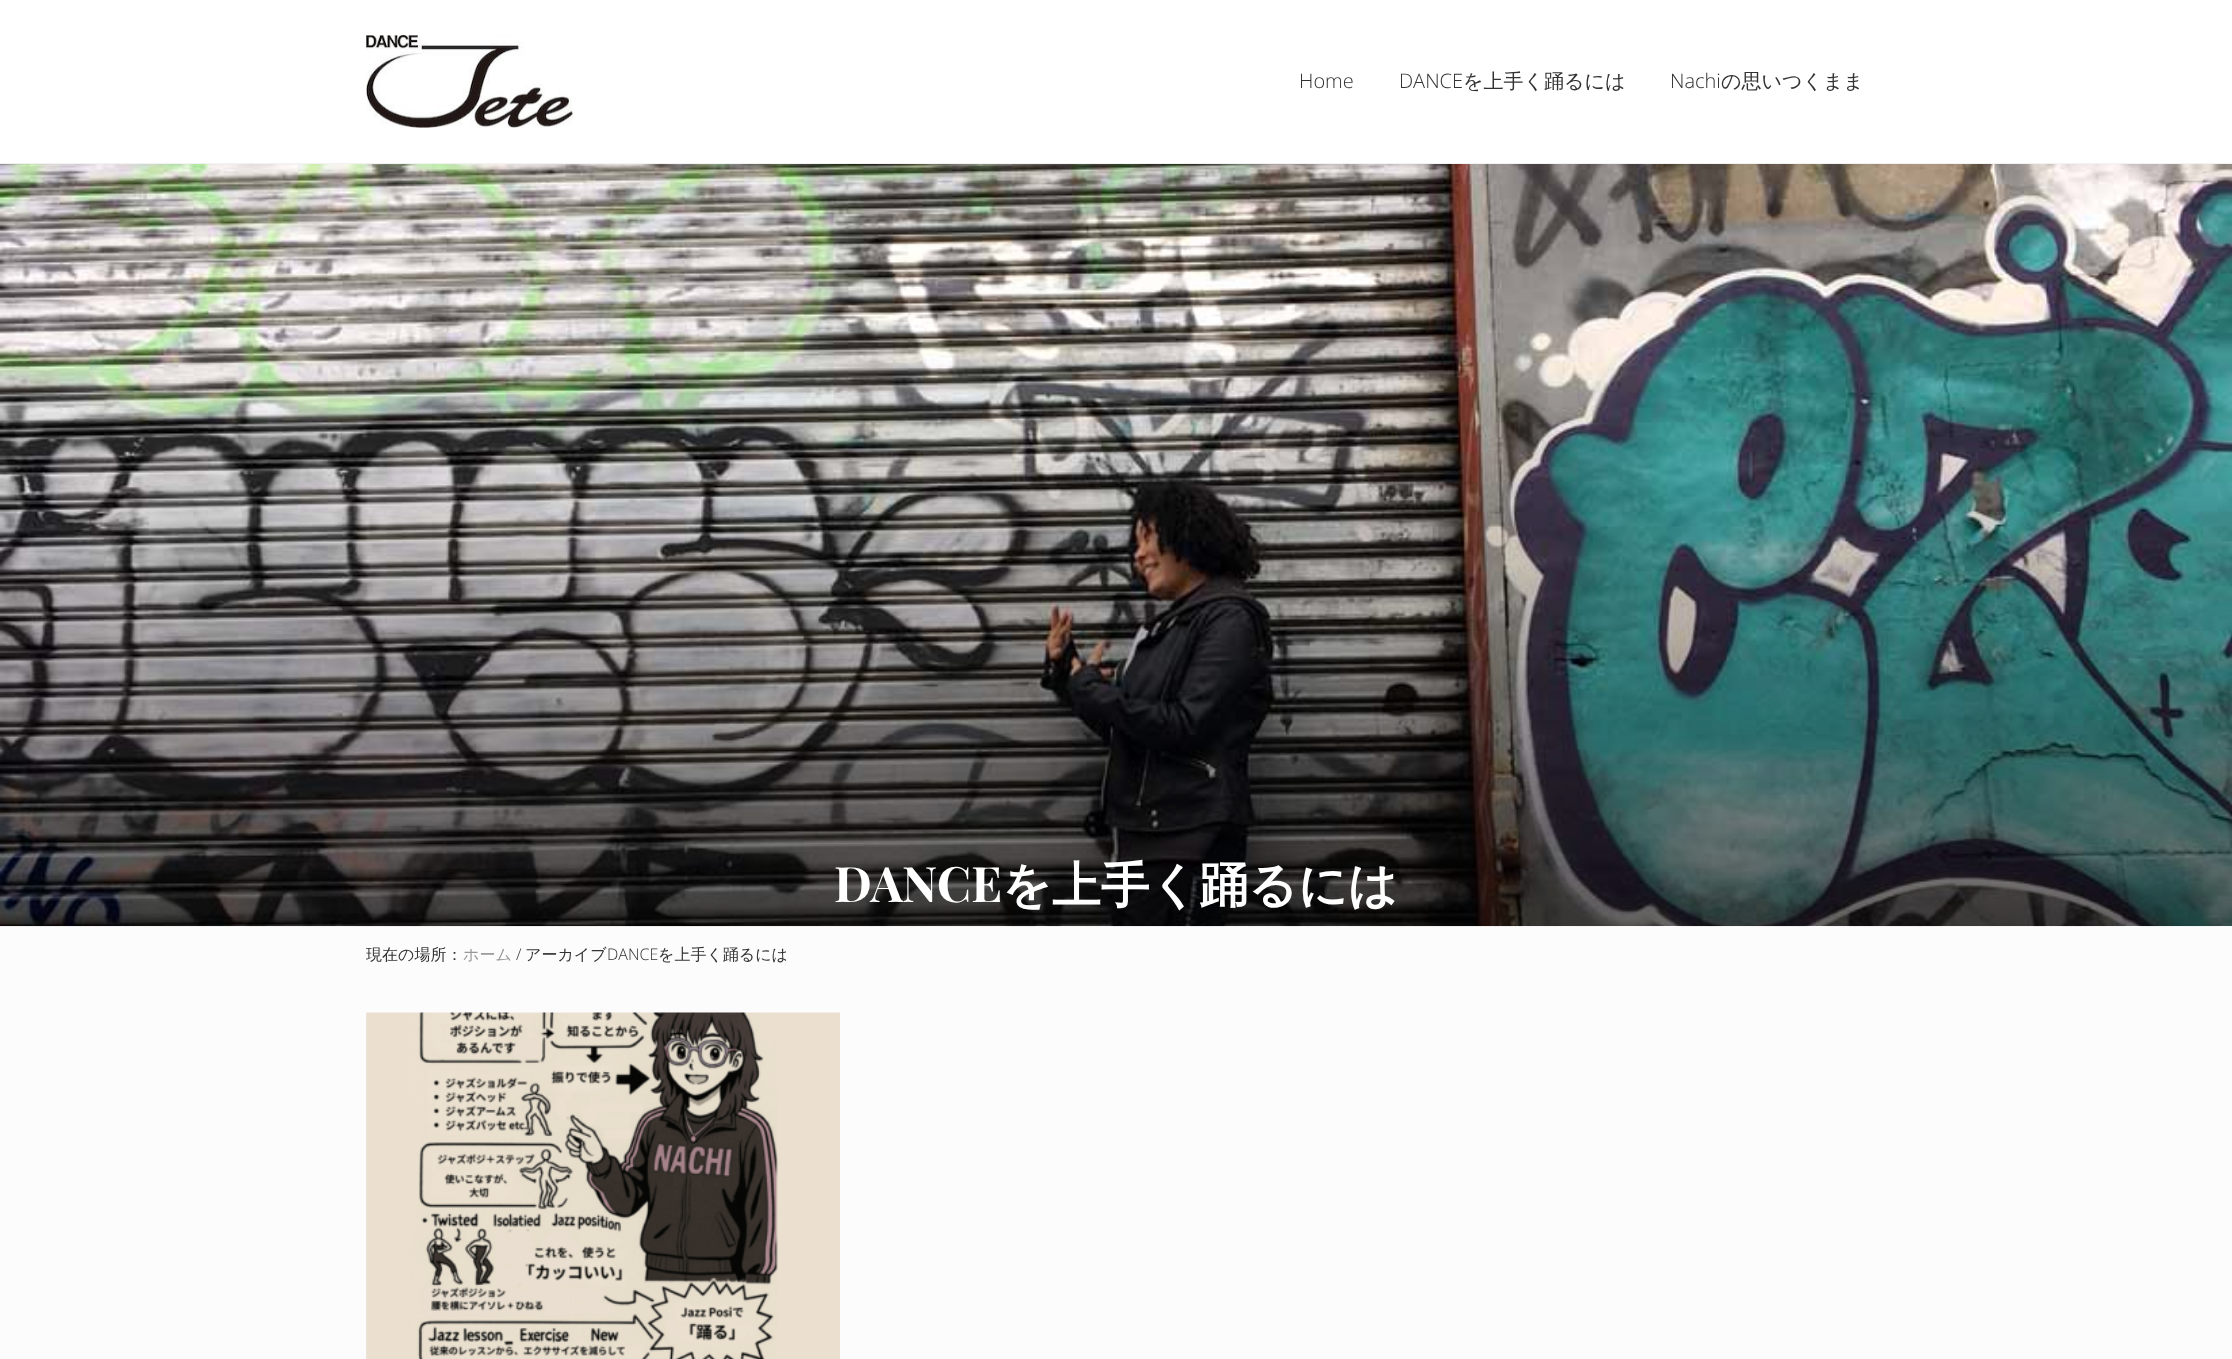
async function draw(canvas) {
  canvas.width = 2232
  canvas.height = 1359
  const ctx = canvas.getContext('2d')
  ctx.miterLimit = 4
  ctx.fontKerning = 'normal'
  async function loadImage(src) {
    const img = new Image()
    img.src = src
    await img.decode()
    return img
  }

  ctx.fillStyle = '#fcfcfc'
  ctx.fillRect(0, 0, 2232, 1359)
  ctx.fillStyle = '#fff'
  ctx.fillRect(0, 0, 2232, 163)
  ctx.fillStyle = '#f2f2f2'
  ctx.fillRect(0, 163, 2232, 1)
  ctx.drawImage(await loadImage('image0.png'), 366, 35, 207, 93)
  ctx.font = '300 20px Open Sans'
  ctx.fillStyle = '#323232'
  ctx.fillText('Home', 1299, 88)
  ctx.fillText('DANCE', 1399, 88)
  ctx.font = '500 20px WenQuanYi Zen Hei'
  ctx.fillText('を上手く踊るには', 1463, 88)
  ctx.font = '300 20px Open Sans'
  ctx.fillText('Nachi', 1670, 88)
  ctx.font = '500 20px WenQuanYi Zen Hei'
  ctx.fillText('の思いつくまま', 1721, 88)
  ctx.drawImage(await loadImage('image1.png'), 0, 164, 2232, 763)
  ctx.font = 'bold 48.75px Playfair Display'
  ctx.fillStyle = '#fff'
  ctx.fillText('DANCE', 834, 902)
  ctx.font = 'bold 48.75px WenQuanYi Zen Hei'
  ctx.fillText('を上手く踊るには', 1002, 902)
  ctx.font = '500 16px WenQuanYi Zen Hei'
  ctx.fillStyle = '#323232'
  ctx.fillText('現在の場所：', 366, 960)
  ctx.fillStyle = '#979797'
  ctx.fillText('ホーム', 463, 960)
  ctx.font = '300 16px Open Sans'
  ctx.fillStyle = '#323232'
  ctx.fillText('/', 516, 960)
  ctx.font = '500 16px WenQuanYi Zen Hei'
  ctx.fillText('アーカイブ', 525, 960)
  ctx.font = '300 16px Open Sans'
  ctx.fillText('DANCE', 607, 960)
  ctx.font = '500 16px WenQuanYi Zen Hei'
  ctx.fillText('を上手く踊るには', 658, 960)
  ctx.strokeStyle = '#f0f0f0'
  ctx.strokeRect(366.5, 1013.5, 473, 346)
  ctx.drawImage(await loadImage('image2.png'), 366, 1012, 474, 347)
}

draw(document.querySelector('canvas'))
